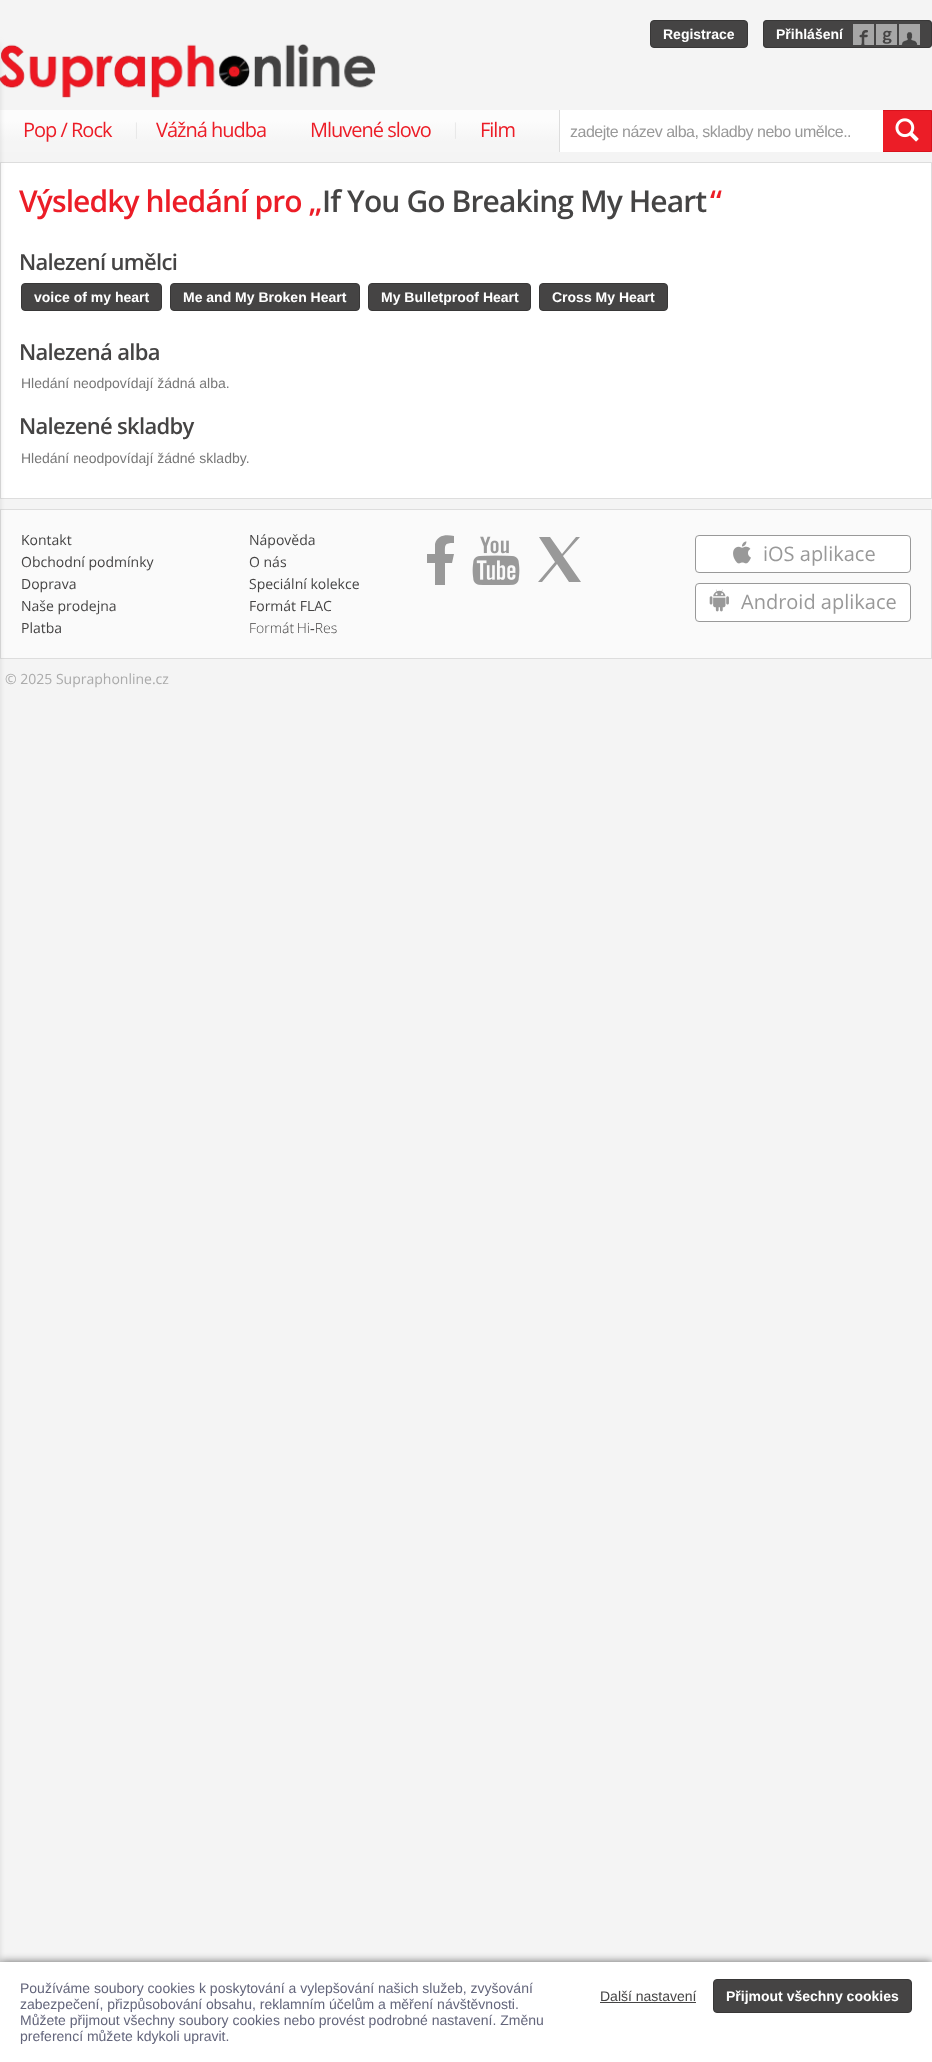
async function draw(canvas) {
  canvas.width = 932
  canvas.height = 2062
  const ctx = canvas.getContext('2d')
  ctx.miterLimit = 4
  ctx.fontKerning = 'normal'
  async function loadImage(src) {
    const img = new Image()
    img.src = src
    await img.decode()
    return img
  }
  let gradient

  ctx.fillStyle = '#f4f4f4'
  ctx.fillRect(0, 0, 932, 2062)
  ctx.fillStyle = '#454444'
  ctx.beginPath()
  ctx.roundRect(650.5, 20.5, 97, 27, 3.5)
  ctx.fill()
  ctx.strokeStyle = '#383737'
  ctx.stroke()
  ctx.font = 'bold 14px Liberation Sans'
  ctx.fillStyle = '#fff'
  ctx.fillText('Registrace', 663, 39)
  ctx.fillStyle = '#454444'
  ctx.beginPath()
  ctx.roundRect(763, 20, 169, 28, 4)
  ctx.fill()
  ctx.drawImage(await loadImage('image0.png'), 853, 24, 67, 21)
  ctx.beginPath()
  ctx.roundRect(763.5, 20.5, 168, 27, 3.5)
  ctx.stroke()
  ctx.fillStyle = '#fff'
  ctx.fillText('Přihlášení', 776, 39)
  ctx.drawImage(await loadImage('image1.png'), 0, 44, 376, 54)
  ctx.fillStyle = '#e1e1e1'
  ctx.filter = 'blur(0.5px)'
  ctx.beginPath()
  ctx.rect(0, 110, 932, 42)
  ctx.fill()
  ctx.filter = 'none'
  gradient = ctx.createLinearGradient(466, 110, 466, 152)
  gradient.addColorStop(0.25, '#fcfcfc')
  gradient.addColorStop(0.75, '#f5f5f5')
  ctx.fillStyle = gradient
  ctx.fillRect(0, 110, 559, 42)
  ctx.letterSpacing = '-1px'
  ctx.font = '20px Open Sans'
  ctx.fillStyle = '#ec1d27'
  ctx.fillText('Pop / Rock', 23, 137)
  ctx.letterSpacing = '0px'
  ctx.font = '16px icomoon'
  ctx.fillStyle = '#e2e2e2'
  ctx.fillText('|', 132, 137)
  ctx.letterSpacing = '-1px'
  ctx.font = '20px Open Sans'
  ctx.fillStyle = '#ec1d27'
  ctx.fillText('Vážná hudba', 156, 137)
  ctx.fillText('Mluvené slovo', 310, 137)
  ctx.letterSpacing = '0px'
  ctx.font = '16px icomoon'
  ctx.fillStyle = '#e2e2e2'
  ctx.fillText('|', 451, 137)
  ctx.letterSpacing = '-1px'
  ctx.font = '20px Open Sans'
  ctx.fillStyle = '#ec1d27'
  ctx.fillText('Film', 480, 137)
  ctx.beginPath()
  ctx.rect(882.5, 110.5, 49, 41)
  ctx.fill()
  ctx.strokeStyle = '#d8121c'
  ctx.stroke()
  ctx.fillStyle = '#fff'
  ctx.fillRect(560, 110, 323, 42)
  ctx.fillStyle = '#ddd'
  ctx.fillRect(559, 110, 1, 42)
  ctx.letterSpacing = '-0.5px'
  ctx.font = '16px Liberation Sans'
  ctx.fillStyle = '#999'
  ctx.fillText('zadejte název alba, skladby nebo umělce..', 570, 137)
  ctx.drawImage(await loadImage('image2.png'), 895, 118, 24, 24)
  ctx.fillStyle = '#e1e1e1'
  ctx.filter = 'blur(0.5px)'
  ctx.beginPath()
  ctx.rect(0, 162, 932, 337)
  ctx.fill()
  ctx.filter = 'none'
  ctx.fillStyle = '#fff'
  ctx.beginPath()
  ctx.rect(0.5, 162.5, 931, 336)
  ctx.fill()
  ctx.strokeStyle = '#ddd'
  ctx.stroke()
  ctx.letterSpacing = '-0.9px'
  ctx.font = '600 30px Open Sans'
  ctx.fillStyle = '#ec1d27'
  ctx.fillText('Výsledky hledání pro „', 19, 212)
  ctx.fillStyle = '#454444'
  ctx.fillText('If You Go Breaking My Heart', 322, 212)
  ctx.fillStyle = '#ec1d27'
  ctx.fillText('“', 710, 212)
  ctx.letterSpacing = '-0.7px'
  ctx.font = '600 22px Open Sans'
  ctx.fillStyle = '#454444'
  ctx.fillText('Nalezení umělci', 19, 270)
  ctx.beginPath()
  ctx.roundRect(21.5, 283.5, 140, 27, 3.5)
  ctx.fill()
  ctx.strokeStyle = '#383737'
  ctx.stroke()
  ctx.letterSpacing = '0px'
  ctx.font = 'bold 14px Liberation Sans'
  ctx.fillStyle = '#fff'
  ctx.fillText('voice of my heart', 34, 302)
  ctx.fillStyle = '#454444'
  ctx.beginPath()
  ctx.roundRect(170.5, 283.5, 189, 27, 3.5)
  ctx.fill()
  ctx.stroke()
  ctx.fillStyle = '#fff'
  ctx.fillText('Me and My Broken Heart', 183, 302)
  ctx.fillStyle = '#454444'
  ctx.beginPath()
  ctx.roundRect(368.5, 283.5, 162, 27, 3.5)
  ctx.fill()
  ctx.stroke()
  ctx.fillStyle = '#fff'
  ctx.fillText('My Bulletproof Heart', 381, 302)
  ctx.fillStyle = '#454444'
  ctx.beginPath()
  ctx.roundRect(539.5, 283.5, 128, 27, 3.5)
  ctx.fill()
  ctx.stroke()
  ctx.fillStyle = '#fff'
  ctx.fillText('Cross My Heart', 552, 302)
  ctx.letterSpacing = '-0.7px'
  ctx.font = '600 22px Open Sans'
  ctx.fillStyle = '#454444'
  ctx.fillText('Nalezená alba', 19, 360)
  ctx.letterSpacing = '0px'
  ctx.font = '14px Liberation Sans'
  ctx.fillStyle = '#777'
  ctx.fillText('Hledání neodpovídají žádná alba.', 21, 388)
  ctx.letterSpacing = '-0.7px'
  ctx.font = '600 22px Open Sans'
  ctx.fillStyle = '#454444'
  ctx.fillText('Nalezené skladby', 19, 434)
  ctx.letterSpacing = '0px'
  ctx.font = '14px Liberation Sans'
  ctx.fillStyle = '#777'
  ctx.fillText('Hledání neodpovídají žádné skladby.', 21, 463)
  ctx.fillStyle = '#e1e1e1'
  ctx.filter = 'blur(0.5px)'
  ctx.beginPath()
  ctx.rect(0, 509, 932, 150)
  ctx.fill()
  ctx.filter = 'none'
  ctx.fillStyle = '#fafafa'
  ctx.beginPath()
  ctx.rect(0.5, 509.5, 931, 149)
  ctx.fill()
  ctx.strokeStyle = '#ddd'
  ctx.stroke()
  ctx.font = '14px Open Sans'
  ctx.fillStyle = '#454444'
  ctx.fillText('Kontakt', 21, 545)
  ctx.fillText('Obchodní podmínky', 21, 567)
  ctx.fillText('Doprava', 21, 589)
  ctx.fillText('Naše prodejna', 21, 611)
  ctx.fillText('Platba', 21, 633)
  ctx.fillText('Nápověda', 249, 545)
  ctx.fillText('O nás', 249, 567)
  ctx.fillText('Speciální kolekce', 249, 589)
  ctx.fillText('Formát FLAC', 249, 611)
  ctx.wordSpacing = '-1px'
  ctx.font = '300 14px Open Sans'
  ctx.fillText('Formát Hi‑Res', 249, 633)
  ctx.fillStyle = '#999'
  ctx.beginPath()
  ctx.moveTo(452, 563)
  ctx.lineTo(454, 554)
  ctx.lineTo(445, 554)
  ctx.bezierCurveTo(445, 545, 444, 543, 454, 543)
  ctx.lineTo(454, 536)
  ctx.bezierCurveTo(446, 534, 437, 535, 435, 544)
  ctx.lineTo(435, 554)
  ctx.lineTo(427, 554)
  ctx.lineTo(427, 563)
  ctx.lineTo(435, 563)
  ctx.lineTo(435, 585)
  ctx.lineTo(445, 585)
  ctx.lineTo(445, 563)
  ctx.closePath()
  ctx.fill()
  ctx.drawImage(await loadImage('image3.png'), 472, 536, 48, 49)
  ctx.beginPath()
  ctx.moveTo(539, 537)
  ctx.lineTo(555, 562)
  ctx.lineTo(538, 582)
  ctx.lineTo(542, 582)
  ctx.lineTo(557, 564)
  ctx.lineTo(569, 582)
  ctx.lineTo(581, 582)
  ctx.lineTo(563, 556)
  ctx.lineTo(580, 537)
  ctx.lineTo(576, 537)
  ctx.lineTo(562, 554)
  ctx.lineTo(550, 537)
  ctx.closePath()
  ctx.fill()
  ctx.fillStyle = '#fff'
  ctx.beginPath()
  ctx.roundRect(695.5, 535.5, 215, 37, 3.5)
  ctx.fill()
  ctx.strokeStyle = '#999'
  ctx.stroke()
  ctx.drawImage(await loadImage('image4.png'), 733, 541, 18, 23)
  ctx.wordSpacing = '0px'
  ctx.font = '20px Open Sans'
  ctx.fillStyle = '#999'
  ctx.fillText('iOS aplikace', 763, 561)
  ctx.fillStyle = '#fff'
  ctx.beginPath()
  ctx.roundRect(695.5, 583.5, 215, 38, 3.5)
  ctx.fill()
  ctx.stroke()
  ctx.drawImage(await loadImage('image5.png'), 709, 589, 20, 23)
  ctx.fillStyle = '#999'
  ctx.fillText('Android aplikace', 741, 609)
  ctx.font = '14px Open Sans'
  ctx.fillStyle = '#aaa'
  ctx.fillText('© 2025 Supraphonline.cz', 5, 684)
  ctx.fillStyle = '#8b8b8b'
  ctx.filter = 'blur(5px)'
  ctx.beginPath()
  ctx.rect(-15, 46, 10, 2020)
  ctx.fill()
  ctx.filter = 'none'
  ctx.fillStyle = '#00000099'
  ctx.filter = 'blur(4px)'
  ctx.beginPath()
  ctx.rect(0, 1962, 932, 100)
  ctx.fill()
  ctx.filter = 'none'
  ctx.fillStyle = '#fff'
  ctx.fillRect(0, 1962, 932, 100)
  ctx.font = '14px Liberation Sans'
  ctx.fillStyle = '#63657b'
  ctx.fillText('Používáme soubory cookies k poskytování a vylepšování našich služeb, zvyšování', 20, 1993)
  ctx.fillText('zabezpečení, přizpůsobování obsahu, reklamním účelům a měření návštěvnosti.', 20, 2009)
  ctx.fillText('Můžete přijmout všechny soubory cookies nebo provést podrobné nastavení. Změnu', 20, 2025)
  ctx.fillText('preferencí můžete kdykoli upravit.', 20, 2041)
  ctx.fillStyle = '#454444'
  ctx.fillText('Další nastavení', 600, 2001)
  ctx.fillRect(600, 2002, 96, 1)
  ctx.beginPath()
  ctx.roundRect(713.5, 1979.5, 198, 33, 3.5)
  ctx.fill()
  ctx.strokeStyle = '#383737'
  ctx.stroke()
  ctx.font = 'bold 14px Liberation Sans'
  ctx.fillStyle = '#fff'
  ctx.fillText('Přijmout všechny cookies', 726, 2001)
}

draw(document.querySelector('canvas'))
